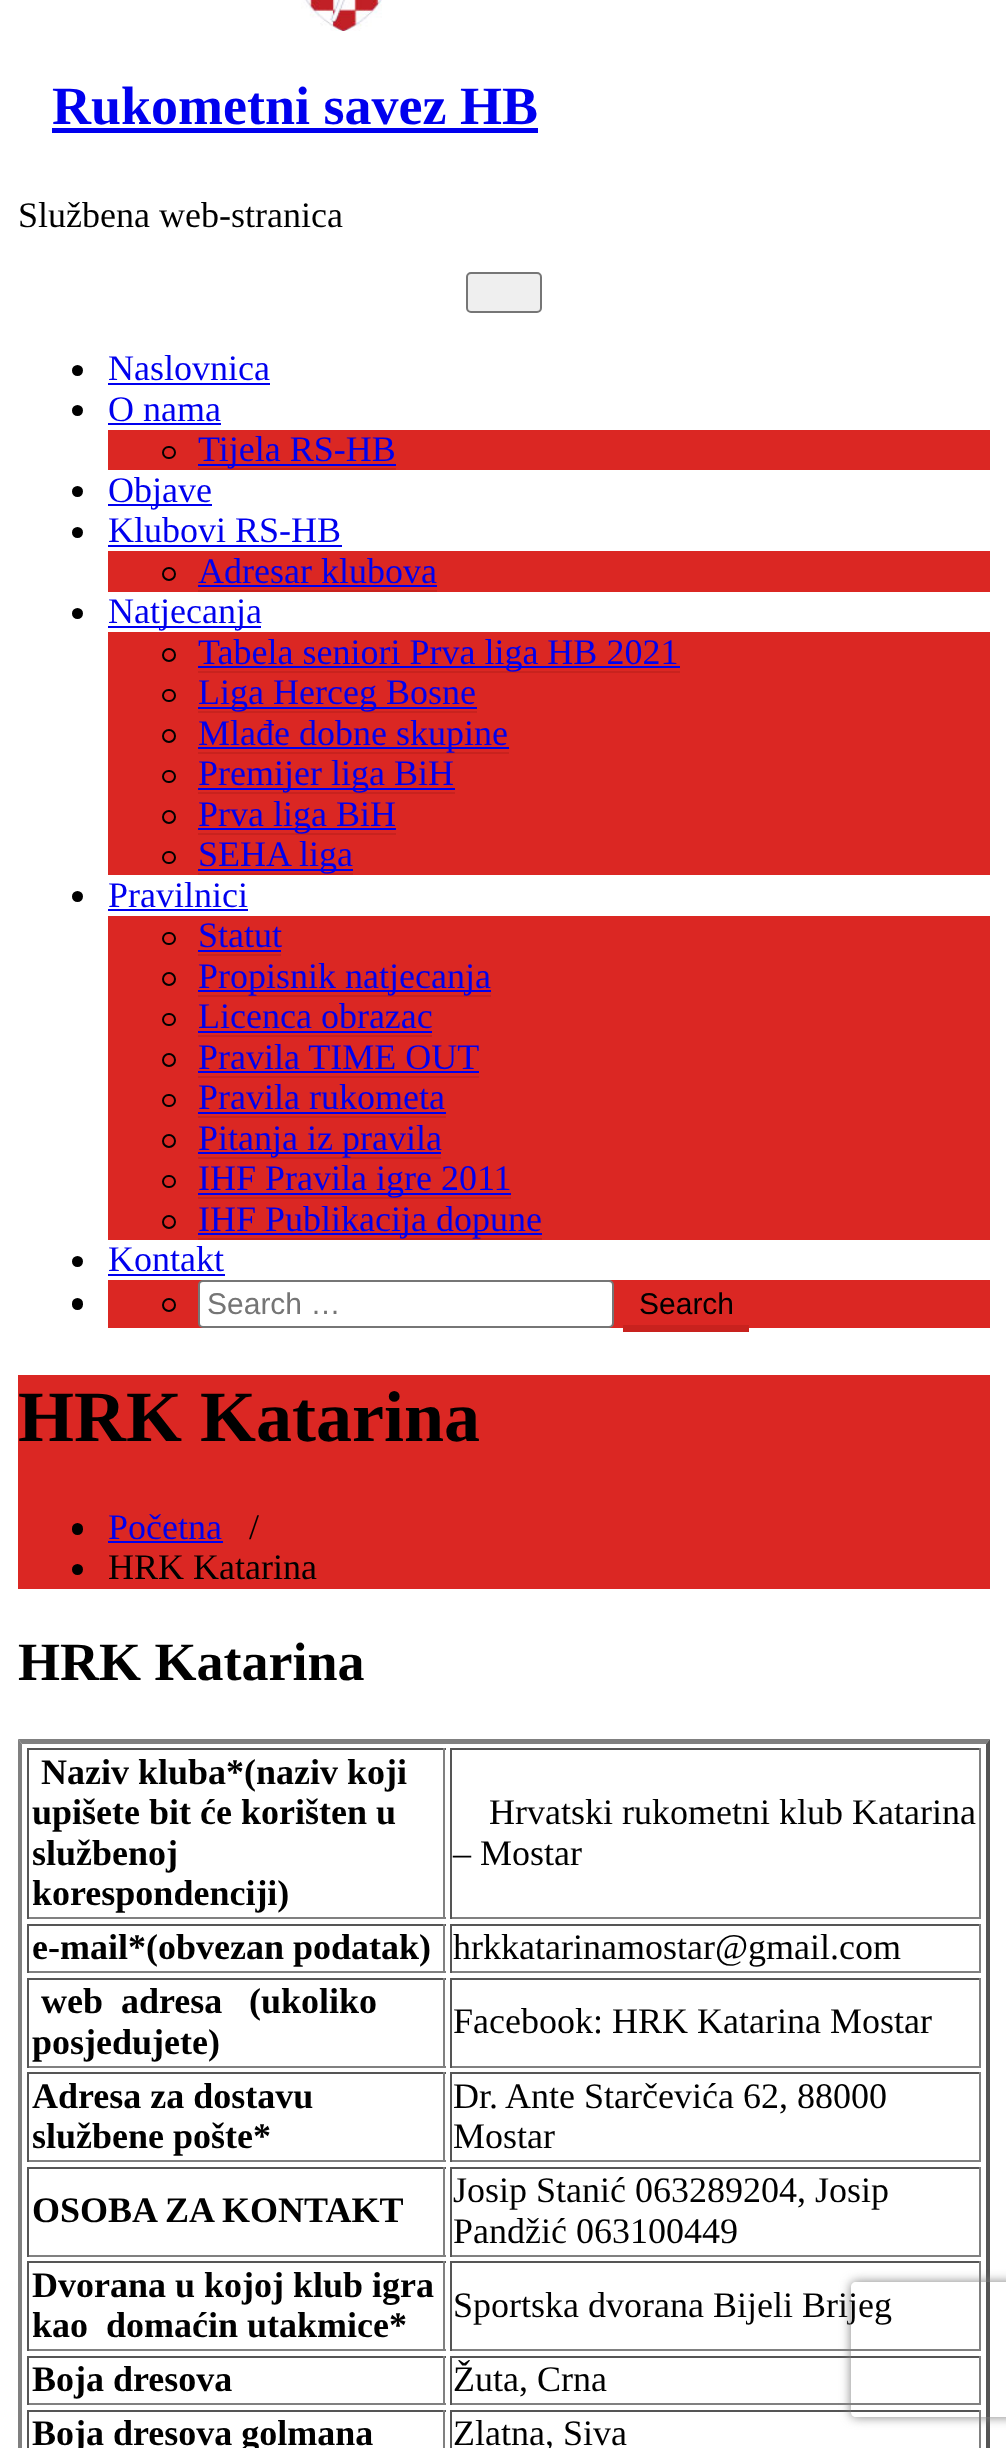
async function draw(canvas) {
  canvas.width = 1006
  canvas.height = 2448
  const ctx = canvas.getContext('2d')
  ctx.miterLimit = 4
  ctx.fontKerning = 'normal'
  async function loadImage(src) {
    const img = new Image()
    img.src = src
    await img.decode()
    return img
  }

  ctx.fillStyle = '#fff'
  ctx.fillRect(0, 0, 1006, 2448)
  ctx.drawImage(await loadImage('image0.png'), 301, 0, 81, 31)
  ctx.font = 'bold 54px Liberation Serif'
  ctx.fillStyle = '#00e'
  ctx.fillText('Rukometni savez HB', 52, 124)
  ctx.fillRect(52, 128, 486, 5)
  ctx.font = '36px Liberation Serif'
  ctx.fillStyle = '#000'
  ctx.fillText('Službena web-stranica', 18, 227)
  ctx.fillStyle = '#efefef'
  ctx.beginPath()
  ctx.roundRect(467, 273, 74, 39, 4)
  ctx.fill()
  ctx.strokeStyle = '#767676'
  ctx.lineWidth = 2
  ctx.stroke()
  ctx.fillStyle = '#000'
  ctx.beginPath()
  ctx.arc(77.5, 370.5, 5.5, 0, 2 * Math.PI)
  ctx.fill()
  ctx.fillStyle = '#00e'
  ctx.fillText('Naslovnica', 108, 380)
  ctx.fillRect(108, 383, 162, 2)
  ctx.fillStyle = '#000'
  ctx.beginPath()
  ctx.arc(77.5, 410.5, 5.5, 0, 2 * Math.PI)
  ctx.fill()
  ctx.fillStyle = '#00e'
  ctx.fillText('O nama', 108, 421)
  ctx.fillRect(108, 423, 113, 2)
  ctx.fillStyle = '#db2723'
  ctx.fillRect(108, 430, 882, 40)
  ctx.beginPath()
  ctx.roundRect(163, 447, 12, 11, 5.5)
  ctx.strokeStyle = '#000'
  ctx.stroke()
  ctx.fillStyle = '#c8221e'
  ctx.fillRect(198, 468, 198, 2)
  ctx.fillStyle = '#00e'
  ctx.fillRect(198, 464, 198, 2)
  ctx.fillText('Tijela RS-HB', 198, 461)
  ctx.fillStyle = '#000'
  ctx.beginPath()
  ctx.arc(77.5, 491.5, 5.5, 0, 2 * Math.PI)
  ctx.fill()
  ctx.fillStyle = '#00e'
  ctx.fillRect(108, 504, 104, 2)
  ctx.fillText('Objave', 108, 502)
  ctx.fillStyle = '#000'
  ctx.beginPath()
  ctx.arc(77.5, 532.5, 5.5, 0, 2 * Math.PI)
  ctx.fill()
  ctx.fillStyle = '#00e'
  ctx.fillText('Klubovi RS-HB', 108, 542)
  ctx.fillRect(108, 545, 234, 2)
  ctx.fillStyle = '#db2723'
  ctx.fillRect(108, 551, 882, 41)
  ctx.beginPath()
  ctx.arc(169, 574, 6, 0, 2 * Math.PI)
  ctx.stroke()
  ctx.fillStyle = '#00e'
  ctx.fillText('Adresar klubova', 198, 583)
  ctx.fillStyle = '#c8221e'
  ctx.fillRect(198, 590, 239, 2)
  ctx.fillStyle = '#00e'
  ctx.fillRect(198, 585, 239, 2)
  ctx.fillStyle = '#000'
  ctx.beginPath()
  ctx.arc(77.5, 613.5, 5.5, 0, 2 * Math.PI)
  ctx.fill()
  ctx.fillStyle = '#00e'
  ctx.fillRect(108, 626, 153, 2)
  ctx.fillText('Natjecanja', 108, 623)
  ctx.fillStyle = '#db2723'
  ctx.fillRect(108, 632, 882, 243)
  ctx.beginPath()
  ctx.arc(169, 655, 6, 0, 2 * Math.PI)
  ctx.stroke()
  ctx.fillStyle = '#c8221e'
  ctx.fillRect(198, 671, 482, 2)
  ctx.fillStyle = '#00e'
  ctx.fillRect(198, 666, 482, 2)
  ctx.fillText('Tabela seniori Prva liga HB 2021', 198, 664)
  ctx.beginPath()
  ctx.roundRect(163, 690, 12, 11, 5.5)
  ctx.stroke()
  ctx.fillStyle = '#c8221e'
  ctx.fillRect(198, 711, 279, 2)
  ctx.fillStyle = '#00e'
  ctx.fillRect(198, 707, 279, 2)
  ctx.fillText('Liga Herceg Bosne', 198, 704)
  ctx.beginPath()
  ctx.arc(169, 736, 6, 0, 2 * Math.PI)
  ctx.stroke()
  ctx.fillStyle = '#c8221e'
  ctx.fillRect(198, 752, 311, 2)
  ctx.fillStyle = '#00e'
  ctx.fillRect(198, 747, 311, 2)
  ctx.fillText('Mlađe dobne skupine', 198, 745)
  ctx.beginPath()
  ctx.roundRect(163, 771, 12, 11, 5.5)
  ctx.stroke()
  ctx.fillStyle = '#c8221e'
  ctx.fillRect(198, 792, 257, 2)
  ctx.fillStyle = '#00e'
  ctx.fillRect(198, 788, 257, 2)
  ctx.fillText('Premijer liga BiH', 198, 785)
  ctx.beginPath()
  ctx.arc(169, 817, 6, 0, 2 * Math.PI)
  ctx.stroke()
  ctx.fillStyle = '#c8221e'
  ctx.fillRect(198, 833, 198, 2)
  ctx.fillStyle = '#00e'
  ctx.fillRect(198, 828, 198, 2)
  ctx.fillText('Prva liga BiH', 198, 826)
  ctx.beginPath()
  ctx.roundRect(163, 852, 12, 11, 5.5)
  ctx.stroke()
  ctx.fillStyle = '#c8221e'
  ctx.fillRect(198, 873, 155, 2)
  ctx.fillStyle = '#00e'
  ctx.fillRect(198, 869, 155, 2)
  ctx.fillText('SEHA liga', 198, 866)
  ctx.fillStyle = '#000'
  ctx.beginPath()
  ctx.arc(77.5, 896.5, 5.5, 0, 2 * Math.PI)
  ctx.fill()
  ctx.fillStyle = '#00e'
  ctx.fillText('Pravilnici', 108, 907)
  ctx.fillRect(108, 909, 140, 2)
  ctx.fillStyle = '#db2723'
  ctx.fillRect(108, 916, 882, 324)
  ctx.beginPath()
  ctx.roundRect(163, 933, 12, 11, 5.5)
  ctx.stroke()
  ctx.fillStyle = '#00e'
  ctx.fillText('Statut', 198, 947)
  ctx.fillStyle = '#c8221e'
  ctx.fillRect(198, 954, 83, 2)
  ctx.fillStyle = '#00e'
  ctx.fillRect(198, 950, 83, 2)
  ctx.beginPath()
  ctx.arc(169, 979, 6, 0, 2 * Math.PI)
  ctx.stroke()
  ctx.fillStyle = '#c8221e'
  ctx.fillRect(198, 995, 293, 2)
  ctx.fillStyle = '#00e'
  ctx.fillRect(198, 990, 293, 2)
  ctx.fillText('Propisnik natjecanja', 198, 988)
  ctx.beginPath()
  ctx.roundRect(163, 1014, 12, 11, 5.5)
  ctx.stroke()
  ctx.fillText('Licenca obrazac', 198, 1028)
  ctx.fillStyle = '#c8221e'
  ctx.fillRect(198, 1035, 234, 2)
  ctx.fillStyle = '#00e'
  ctx.fillRect(198, 1031, 234, 2)
  ctx.beginPath()
  ctx.arc(169, 1060, 6, 0, 2 * Math.PI)
  ctx.stroke()
  ctx.fillText('Pravila TIME OUT', 198, 1069)
  ctx.fillStyle = '#c8221e'
  ctx.fillRect(198, 1076, 281, 2)
  ctx.fillStyle = '#00e'
  ctx.fillRect(198, 1071, 281, 2)
  ctx.beginPath()
  ctx.roundRect(163, 1095, 12, 11, 5.5)
  ctx.stroke()
  ctx.fillText('Pravila rukometa', 198, 1109)
  ctx.fillStyle = '#c8221e'
  ctx.fillRect(198, 1116, 248, 2)
  ctx.fillStyle = '#00e'
  ctx.fillRect(198, 1112, 248, 2)
  ctx.beginPath()
  ctx.arc(169, 1141, 6, 0, 2 * Math.PI)
  ctx.stroke()
  ctx.fillStyle = '#c8221e'
  ctx.fillRect(198, 1157, 243, 2)
  ctx.fillStyle = '#00e'
  ctx.fillRect(198, 1152, 243, 2)
  ctx.fillText('Pitanja iz pravila', 198, 1150)
  ctx.beginPath()
  ctx.roundRect(163, 1176, 12, 11, 5.5)
  ctx.stroke()
  ctx.fillStyle = '#c8221e'
  ctx.fillRect(198, 1197, 313, 2)
  ctx.fillStyle = '#00e'
  ctx.fillRect(198, 1193, 313, 2)
  ctx.fillText('IHF Pravila igre 2011', 198, 1190)
  ctx.beginPath()
  ctx.arc(169, 1222, 6, 0, 2 * Math.PI)
  ctx.stroke()
  ctx.fillStyle = '#c8221e'
  ctx.fillRect(198, 1238, 344, 2)
  ctx.fillStyle = '#00e'
  ctx.fillRect(198, 1233, 344, 2)
  ctx.fillText('IHF Publikacija dopune', 198, 1231)
  ctx.fillStyle = '#000'
  ctx.beginPath()
  ctx.arc(77.5, 1261.5, 5.5, 0, 2 * Math.PI)
  ctx.fill()
  ctx.fillStyle = '#00e'
  ctx.fillText('Kontakt', 108, 1271)
  ctx.fillRect(108, 1274, 117, 2)
  ctx.fillStyle = '#000'
  ctx.beginPath()
  ctx.roundRect(72, 1298, 11, 12, 5.5)
  ctx.fill()
  ctx.fillStyle = '#db2723'
  ctx.fillRect(108, 1280, 882, 48)
  ctx.beginPath()
  ctx.arc(169, 1305, 6, 0, 2 * Math.PI)
  ctx.stroke()
  ctx.fillStyle = '#fff'
  ctx.beginPath()
  ctx.roundRect(199, 1281, 414, 46, 4)
  ctx.fill()
  ctx.strokeStyle = '#767676'
  ctx.stroke()
  ctx.font = '30px Liberation Sans'
  ctx.fillStyle = '#757575'
  ctx.fillText('Search …', 207, 1314)
  ctx.fillStyle = '#c8221e'
  ctx.beginPath()
  ctx.moveTo(623, 1289)
  ctx.lineTo(623, 1332)
  ctx.lineTo(749, 1332)
  ctx.lineTo(749, 1325)
  ctx.lineTo(623, 1325)
  ctx.closePath()
  ctx.fill()
  ctx.fillStyle = '#000'
  ctx.fillText('Search', 639, 1314)
  ctx.fillStyle = '#db2723'
  ctx.fillRect(18, 1375, 972, 214)
  ctx.font = 'bold 72px Liberation Serif'
  ctx.fillStyle = '#000'
  ctx.fillText('HRK Katarina', 18, 1441)
  ctx.beginPath()
  ctx.roundRect(72, 1523, 11, 12, 5.5)
  ctx.fill()
  ctx.font = '36px Liberation Serif'
  ctx.fillStyle = '#00e'
  ctx.fillText('Početna', 108, 1539)
  ctx.fillRect(108, 1541, 115, 2)
  ctx.fillStyle = '#000'
  ctx.fillText('/', 249, 1539)
  ctx.beginPath()
  ctx.arc(77.5, 1569.5, 5.5, 0, 2 * Math.PI)
  ctx.fill()
  ctx.fillText('HRK Katarina', 108, 1579)
  ctx.font = 'bold 54px Liberation Serif'
  ctx.fillText('HRK Katarina', 18, 1680)
  ctx.fillStyle = '#808080'
  ctx.beginPath()
  ctx.moveTo(18, 1739)
  ctx.lineTo(990, 1739)
  ctx.lineTo(986, 1744)
  ctx.lineTo(22, 1744)
  ctx.closePath()
  ctx.fill()
  ctx.fillStyle = '#555'
  ctx.beginPath()
  ctx.moveTo(990, 1739)
  ctx.lineTo(990, 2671)
  ctx.lineTo(986, 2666)
  ctx.lineTo(986, 1744)
  ctx.closePath()
  ctx.fill()
  ctx.fillStyle = '#808080'
  ctx.beginPath()
  ctx.moveTo(18, 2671)
  ctx.lineTo(18, 1739)
  ctx.lineTo(22, 1744)
  ctx.lineTo(22, 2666)
  ctx.closePath()
  ctx.fill()
  ctx.fillStyle = '#555'
  ctx.fillRect(27, 1748, 419, 2)
  ctx.fillStyle = '#808080'
  ctx.fillRect(443, 1748, 2, 171)
  ctx.fillRect(27, 1917, 419, 2)
  ctx.fillStyle = '#555'
  ctx.fillRect(27, 1748, 2, 171)
  ctx.font = 'bold 36px Liberation Serif'
  ctx.fillStyle = '#000'
  ctx.fillText('Naziv kluba*(naziv koji', 41, 1784)
  ctx.fillText('upišete bit će korišten u', 32, 1824)
  ctx.fillText('službenoj', 32, 1865)
  ctx.fillText('korespondenciji)', 32, 1905)
  ctx.fillStyle = '#555'
  ctx.fillRect(450, 1748, 531, 2)
  ctx.fillStyle = '#808080'
  ctx.fillRect(979, 1748, 2, 171)
  ctx.fillRect(450, 1917, 531, 2)
  ctx.fillStyle = '#555'
  ctx.fillRect(450, 1748, 2, 171)
  ctx.font = '36px Liberation Serif'
  ctx.fillStyle = '#000'
  ctx.fillText('Hrvatski rukometni klub Katarina', 489, 1824)
  ctx.fillText('– Mostar', 453, 1865)
  ctx.fillStyle = '#555'
  ctx.fillRect(27, 1924, 419, 2)
  ctx.fillStyle = '#808080'
  ctx.fillRect(443, 1924, 2, 49)
  ctx.fillRect(27, 1971, 419, 2)
  ctx.fillStyle = '#555'
  ctx.fillRect(27, 1924, 2, 49)
  ctx.font = 'bold 36px Liberation Serif'
  ctx.fillStyle = '#000'
  ctx.fillText('e-mail*(obvezan podatak)', 32, 1959)
  ctx.fillStyle = '#555'
  ctx.fillRect(450, 1924, 531, 2)
  ctx.fillStyle = '#808080'
  ctx.fillRect(979, 1924, 2, 49)
  ctx.fillRect(450, 1971, 531, 2)
  ctx.fillStyle = '#555'
  ctx.fillRect(450, 1924, 2, 49)
  ctx.font = '36px Liberation Serif'
  ctx.fillStyle = '#000'
  ctx.fillText('hrkkatarinamostar@gmail.com', 453, 1959)
  ctx.fillStyle = '#555'
  ctx.fillRect(27, 1978, 419, 2)
  ctx.fillStyle = '#808080'
  ctx.fillRect(443, 1978, 2, 90)
  ctx.fillRect(27, 2066, 419, 2)
  ctx.fillStyle = '#555'
  ctx.fillRect(27, 1978, 2, 90)
  ctx.font = 'bold 36px Liberation Serif'
  ctx.fillStyle = '#000'
  ctx.fillText('web  adresa', 41, 2013)
  ctx.fillText('(ukoliko', 249, 2013)
  ctx.fillText('posjedujete)', 32, 2054)
  ctx.fillStyle = '#555'
  ctx.fillRect(450, 1978, 531, 2)
  ctx.fillStyle = '#808080'
  ctx.fillRect(979, 1978, 2, 90)
  ctx.fillRect(450, 2066, 531, 2)
  ctx.fillStyle = '#555'
  ctx.fillRect(450, 1978, 2, 90)
  ctx.font = '36px Liberation Serif'
  ctx.fillStyle = '#000'
  ctx.fillText('Facebook: HRK Katarina Mostar', 453, 2033)
  ctx.fillStyle = '#555'
  ctx.fillRect(27, 2072, 419, 2)
  ctx.fillStyle = '#808080'
  ctx.fillRect(443, 2072, 2, 90)
  ctx.fillRect(27, 2160, 419, 2)
  ctx.fillStyle = '#555'
  ctx.fillRect(27, 2072, 2, 90)
  ctx.font = 'bold 36px Liberation Serif'
  ctx.fillStyle = '#000'
  ctx.fillText('Adresa za dostavu', 32, 2108)
  ctx.fillText('službene pošte*', 32, 2148)
  ctx.fillStyle = '#555'
  ctx.fillRect(450, 2072, 531, 2)
  ctx.fillStyle = '#808080'
  ctx.fillRect(979, 2072, 2, 90)
  ctx.fillRect(450, 2160, 531, 2)
  ctx.fillStyle = '#555'
  ctx.fillRect(450, 2072, 2, 90)
  ctx.font = '36px Liberation Serif'
  ctx.fillStyle = '#000'
  ctx.fillText('Dr. Ante Starčevića 62, 88000', 453, 2108)
  ctx.fillText('Mostar', 453, 2148)
  ctx.fillStyle = '#555'
  ctx.fillRect(27, 2167, 419, 2)
  ctx.fillStyle = '#808080'
  ctx.fillRect(443, 2167, 2, 90)
  ctx.fillRect(27, 2255, 419, 2)
  ctx.fillStyle = '#555'
  ctx.fillRect(27, 2167, 2, 90)
  ctx.font = 'bold 36px Liberation Serif'
  ctx.fillStyle = '#000'
  ctx.fillText('OSOBA ZA KONTAKT', 32, 2222)
  ctx.fillStyle = '#555'
  ctx.fillRect(450, 2167, 531, 2)
  ctx.fillStyle = '#808080'
  ctx.fillRect(979, 2167, 2, 90)
  ctx.fillRect(450, 2255, 531, 2)
  ctx.fillStyle = '#555'
  ctx.fillRect(450, 2167, 2, 90)
  ctx.font = '36px Liberation Serif'
  ctx.fillStyle = '#000'
  ctx.fillText('Josip Stanić 063289204, Josip', 453, 2202)
  ctx.fillText('Pandžić 063100449', 453, 2243)
  ctx.fillStyle = '#555'
  ctx.fillRect(27, 2261, 419, 2)
  ctx.fillStyle = '#808080'
  ctx.fillRect(443, 2261, 2, 90)
  ctx.fillRect(27, 2349, 419, 2)
  ctx.fillStyle = '#555'
  ctx.fillRect(27, 2261, 2, 90)
  ctx.font = 'bold 36px Liberation Serif'
  ctx.fillStyle = '#000'
  ctx.fillText('Dvorana u kojoj klub igra', 32, 2297)
  ctx.fillText('kao  domaćin utakmice*', 32, 2337)
  ctx.fillStyle = '#555'
  ctx.fillRect(450, 2261, 531, 2)
  ctx.fillStyle = '#808080'
  ctx.fillRect(979, 2261, 2, 90)
  ctx.fillRect(450, 2349, 531, 2)
  ctx.fillStyle = '#555'
  ctx.fillRect(450, 2261, 2, 90)
  ctx.font = '36px Liberation Serif'
  ctx.fillStyle = '#000'
  ctx.fillText('Sportska dvorana Bijeli Brijeg', 453, 2317)
  ctx.fillStyle = '#555'
  ctx.fillRect(27, 2356, 419, 2)
  ctx.fillStyle = '#808080'
  ctx.fillRect(443, 2356, 2, 49)
  ctx.fillRect(27, 2403, 419, 2)
  ctx.fillStyle = '#555'
  ctx.fillRect(27, 2356, 2, 49)
  ctx.font = 'bold 36px Liberation Serif'
  ctx.fillStyle = '#000'
  ctx.fillText('Boja dresova', 32, 2391)
  ctx.fillStyle = '#555'
  ctx.fillRect(450, 2356, 531, 2)
  ctx.fillStyle = '#808080'
  ctx.fillRect(979, 2356, 2, 49)
  ctx.fillRect(450, 2403, 531, 2)
  ctx.fillStyle = '#555'
  ctx.fillRect(450, 2356, 2, 49)
  ctx.font = '36px Liberation Serif'
  ctx.fillStyle = '#000'
  ctx.fillText('Žuta, Crna', 453, 2391)
  ctx.fillStyle = '#555'
  ctx.fillRect(27, 2410, 419, 2)
  ctx.fillStyle = '#808080'
  ctx.fillRect(443, 2410, 2, 38)
  ctx.fillStyle = '#555'
  ctx.fillRect(27, 2410, 2, 38)
  ctx.font = 'bold 36px Liberation Serif'
  ctx.fillStyle = '#000'
  ctx.fillText('Boja dresova golmana', 32, 2445)
  ctx.fillStyle = '#555'
  ctx.fillRect(450, 2410, 531, 2)
  ctx.fillStyle = '#808080'
  ctx.fillRect(979, 2410, 2, 38)
  ctx.fillStyle = '#555'
  ctx.fillRect(450, 2410, 2, 38)
  ctx.font = '36px Liberation Serif'
  ctx.fillStyle = '#000'
  ctx.fillText('Zlatna, Siva', 453, 2445)
  ctx.save()
  ctx.beginPath()
  ctx.moveTo(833, 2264)
  ctx.lineTo(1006, 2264)
  ctx.lineTo(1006, 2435)
  ctx.lineTo(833, 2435)
  ctx.closePath()
  ctx.moveTo(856, 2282)
  ctx.lineTo(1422, 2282)
  ctx.bezierCurveTo(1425, 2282, 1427, 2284, 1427, 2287)
  ctx.lineTo(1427, 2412)
  ctx.bezierCurveTo(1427, 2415, 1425, 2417, 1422, 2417)
  ctx.lineTo(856, 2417)
  ctx.bezierCurveTo(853, 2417, 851, 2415, 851, 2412)
  ctx.lineTo(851, 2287)
  ctx.bezierCurveTo(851, 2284, 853, 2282, 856, 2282)
  ctx.closePath()
  ctx.clip('evenodd')
  ctx.fillStyle = '#808080'
  ctx.filter = 'blur(5.5px)'
  ctx.beginPath()
  ctx.roundRect(851, 2282, 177, 135, 5)
  ctx.fill()
  ctx.filter = 'none'
  ctx.restore()
}

draw(document.querySelector('canvas'))
